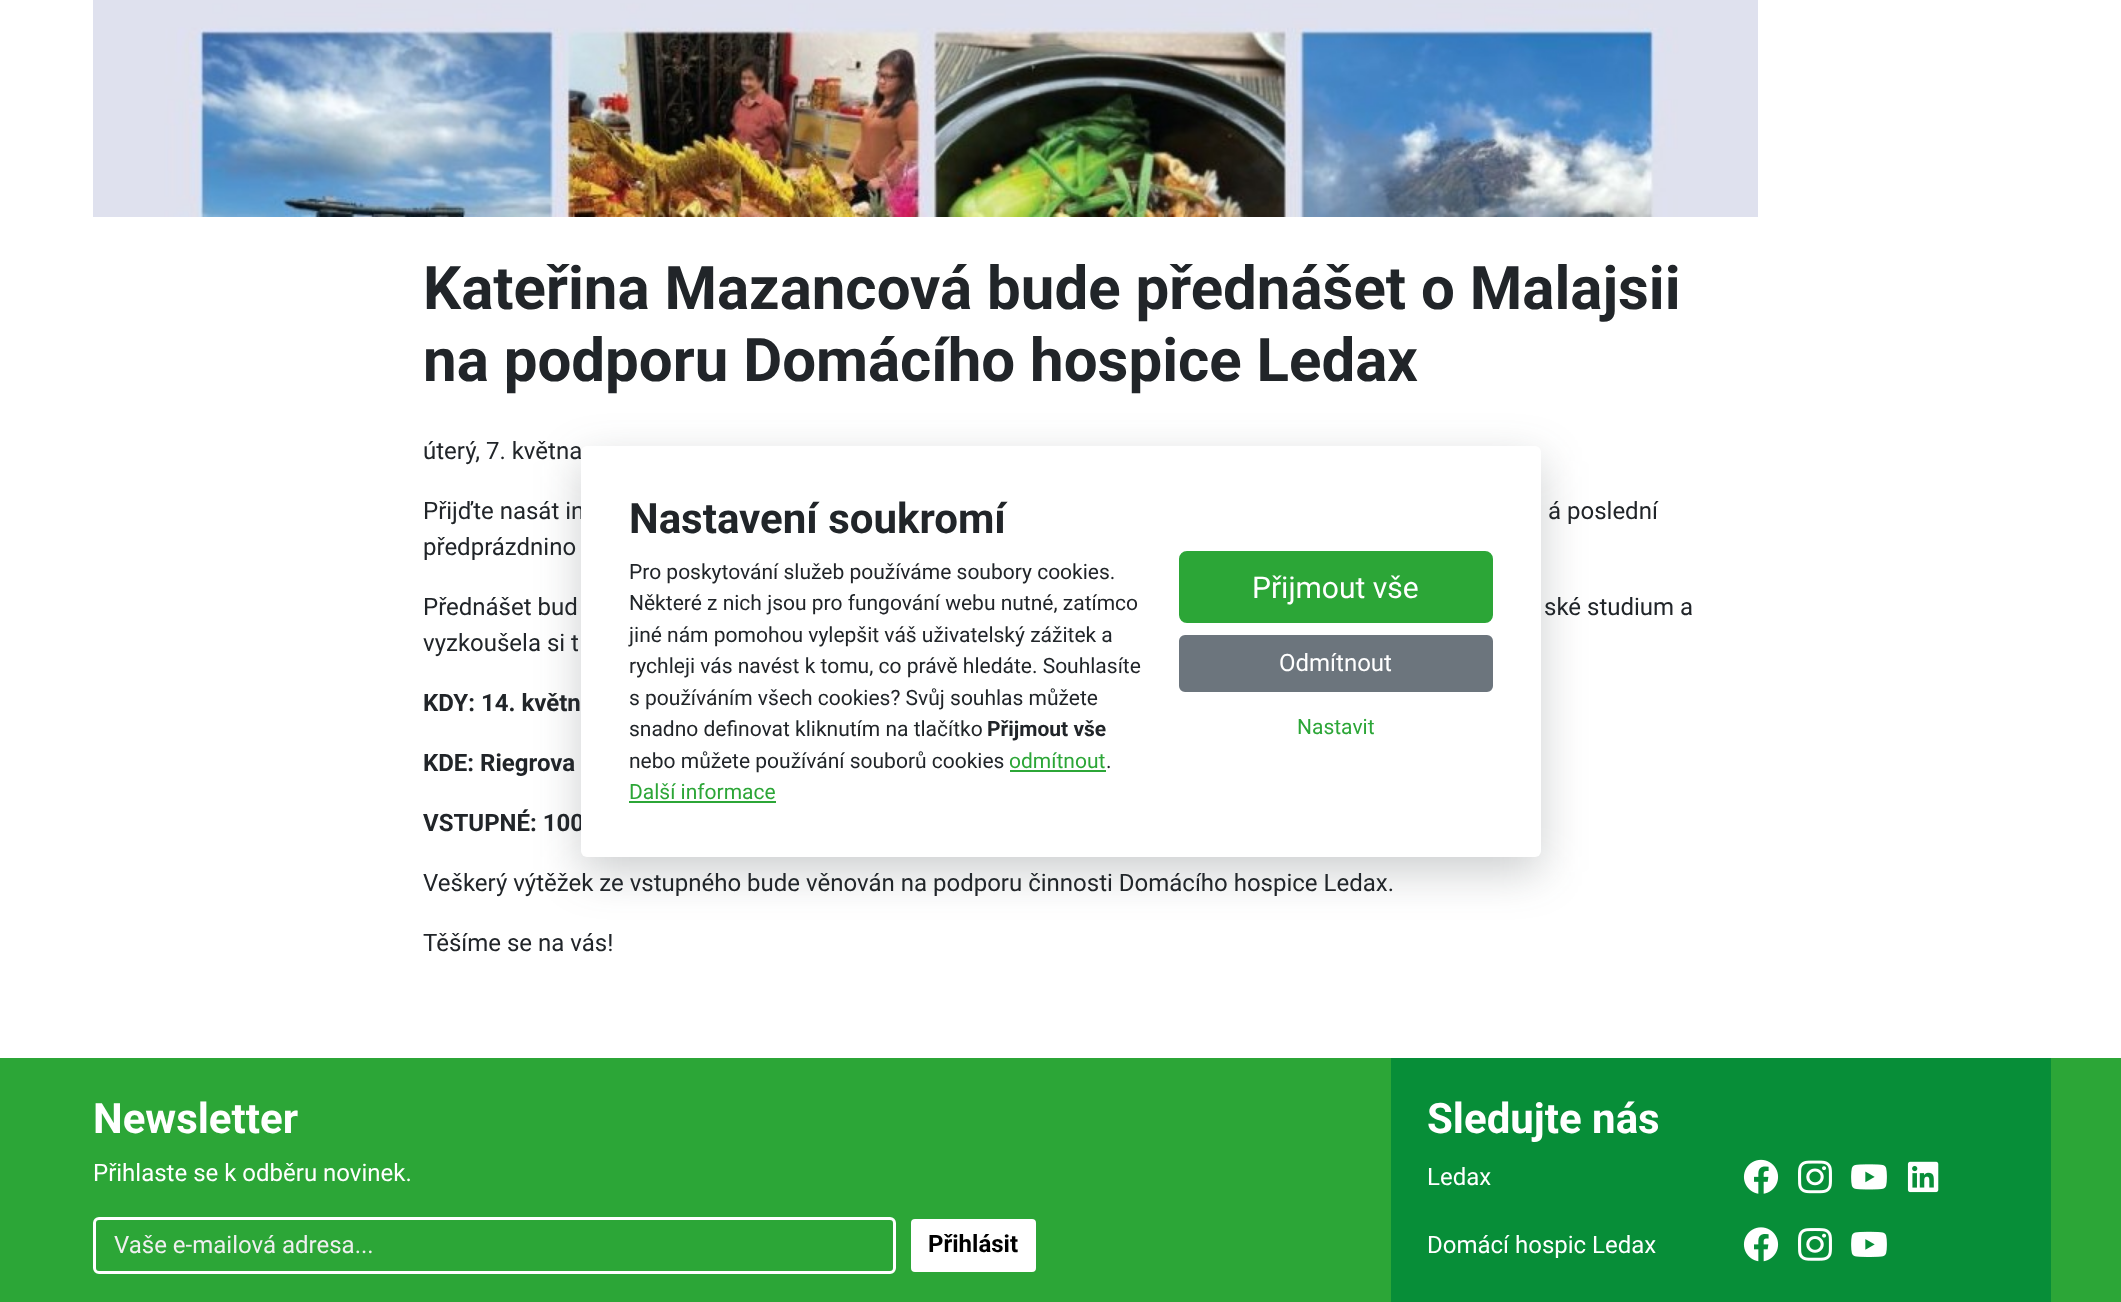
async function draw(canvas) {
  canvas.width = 2121
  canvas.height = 1302
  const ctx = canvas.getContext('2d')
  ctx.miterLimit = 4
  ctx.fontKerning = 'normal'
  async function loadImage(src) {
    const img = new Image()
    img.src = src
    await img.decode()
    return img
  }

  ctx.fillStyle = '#fff'
  ctx.fillRect(0, 0, 2121, 1302)
  ctx.drawImage(await loadImage('image0.png'), 93, 0, 1665, 217)
  ctx.font = 'bold 60px Roboto'
  ctx.fillStyle = '#212529'
  ctx.fillText('Kateřina Mazancová bude přednášet o Malajsii', 423, 309)
  ctx.fillText('na podporu Domácího hospice Ledax', 423, 381)
  ctx.font = '24px Roboto'
  ctx.fillText('úterý, 7. května', 423, 459)
  ctx.fillText('Přijďte nasát in', 423, 519)
  ctx.fillText('á poslední', 1548, 519)
  ctx.fillText('předprázdnino', 423, 555)
  ctx.fillText('Přednášet bud', 423, 615)
  ctx.fillText('ské studium a', 1544, 615)
  ctx.fillText('vyzkoušela si t', 423, 651)
  ctx.font = 'bold 24px Roboto'
  ctx.fillText('KDY: 14. květn', 423, 711)
  ctx.fillText('KDE: Riegrova', 423, 771)
  ctx.fillText('VSTUPNÉ: 100', 423, 831)
  ctx.font = '24px Roboto'
  ctx.fillText('Veškerý výtěžek ze vstupného bude věnován na podporu činnosti Domácího hospice Ledax.', 423, 891)
  ctx.fillText('Těšíme se na vás!', 423, 951)
  ctx.fillStyle = '#343a4040'
  ctx.filter = 'blur(22.5px)'
  ctx.beginPath()
  ctx.roundRect(581, 461, 960, 411, 6)
  ctx.fill()
  ctx.filter = 'none'
  ctx.fillStyle = '#fff'
  ctx.beginPath()
  ctx.roundRect(581, 446, 960, 411, 6)
  ctx.fill()
  ctx.font = 'bold 42px Roboto'
  ctx.fillStyle = '#212529'
  ctx.fillText('Nastavení soukromí', 629, 533)
  ctx.font = '21px Roboto'
  ctx.fillText('Pro poskytování služeb používáme soubory cookies.', 629, 579)
  ctx.fillText('Některé z nich jsou pro fungování webu nutné, zatímco', 629, 610)
  ctx.fillText('jiné nám pomohou vylepšit váš uživatelský zážitek a', 629, 642)
  ctx.fillText('rychleji vás navést k tomu, co právě hledáte. Souhlasíte', 629, 673)
  ctx.fillText('s používáním všech cookies? Svůj souhlas můžete', 629, 705)
  ctx.fillText('snadno definovat kliknutím na tlačítko', 629, 736)
  ctx.font = 'bold 21px Roboto'
  ctx.fillText('Přijmout vše', 987, 736)
  ctx.font = '21px Roboto'
  ctx.fillText('nebo můžete používání souborů cookies', 629, 768)
  ctx.fillStyle = '#2ca637'
  ctx.fillText('odmítnout', 1009, 768)
  ctx.fillRect(1010, 770, 96, 2)
  ctx.fillStyle = '#212529'
  ctx.fillText('.', 1106, 768)
  ctx.fillStyle = '#2ca637'
  ctx.fillText('Další informace', 629, 799)
  ctx.fillRect(629, 801, 147, 2)
  ctx.beginPath()
  ctx.roundRect(1180, 552, 312, 70, 7)
  ctx.fill()
  ctx.strokeStyle = '#2ca637'
  ctx.lineWidth = 2
  ctx.stroke()
  ctx.font = '30px Roboto'
  ctx.fillStyle = '#fff'
  ctx.fillText('Přijmout vše', 1252, 598)
  ctx.fillStyle = '#6c757d'
  ctx.beginPath()
  ctx.roundRect(1180, 636, 312, 55, 5)
  ctx.fill()
  ctx.strokeStyle = '#6c757d'
  ctx.stroke()
  ctx.font = '24px Roboto'
  ctx.fillStyle = '#fff'
  ctx.fillText('Odmítnout', 1279, 671)
  ctx.font = '21px Roboto'
  ctx.fillStyle = '#2ca637'
  ctx.fillText('Nastavit', 1297, 734)
  ctx.fillRect(0, 1058, 2121, 244)
  ctx.font = 'bold 42px Roboto'
  ctx.fillStyle = '#fff'
  ctx.fillText('Newsletter', 93, 1133)
  ctx.font = '24px Roboto'
  ctx.fillText('Přihlaste se k odběru novinek.', 93, 1181)
  ctx.beginPath()
  ctx.roundRect(94.5, 1218.5, 800, 54, 4.5)
  ctx.strokeStyle = '#fff'
  ctx.lineWidth = 3
  ctx.stroke()
  ctx.fillStyle = '#efefef'
  ctx.fillText('Vaše e-mailová adresa...', 114, 1253)
  ctx.fillStyle = '#fff'
  ctx.beginPath()
  ctx.roundRect(910, 1218, 127, 55, 5)
  ctx.fill()
  ctx.strokeStyle = '#2ca637'
  ctx.lineWidth = 2
  ctx.stroke()
  ctx.font = 'bold 24px Roboto'
  ctx.fillStyle = '#000'
  ctx.fillText('Přihlásit', 928, 1252)
  ctx.fillStyle = '#078e38'
  ctx.fillRect(1391, 1058, 660, 244)
  ctx.font = 'bold 42px Roboto'
  ctx.fillStyle = '#fff'
  ctx.fillText('Sledujte nás', 1427, 1133)
  ctx.font = '24px Roboto'
  ctx.fillText('Ledax', 1427, 1185)
  ctx.drawImage(await loadImage('image1.png'), 1743, 1159, 36, 35)
  ctx.drawImage(await loadImage('image2.png'), 1798, 1160, 34, 34)
  ctx.drawImage(await loadImage('image3.png'), 1851, 1164, 36, 26)
  ctx.drawImage(await loadImage('image4.png'), 1907, 1161, 32, 32)
  ctx.fillText('Domácí hospic Ledax', 1427, 1253)
  ctx.drawImage(await loadImage('image5.png'), 1743, 1227, 36, 35)
  ctx.drawImage(await loadImage('image6.png'), 1798, 1228, 34, 33)
  ctx.drawImage(await loadImage('image7.png'), 1851, 1231, 36, 26)
}

draw(document.querySelector('canvas'))
